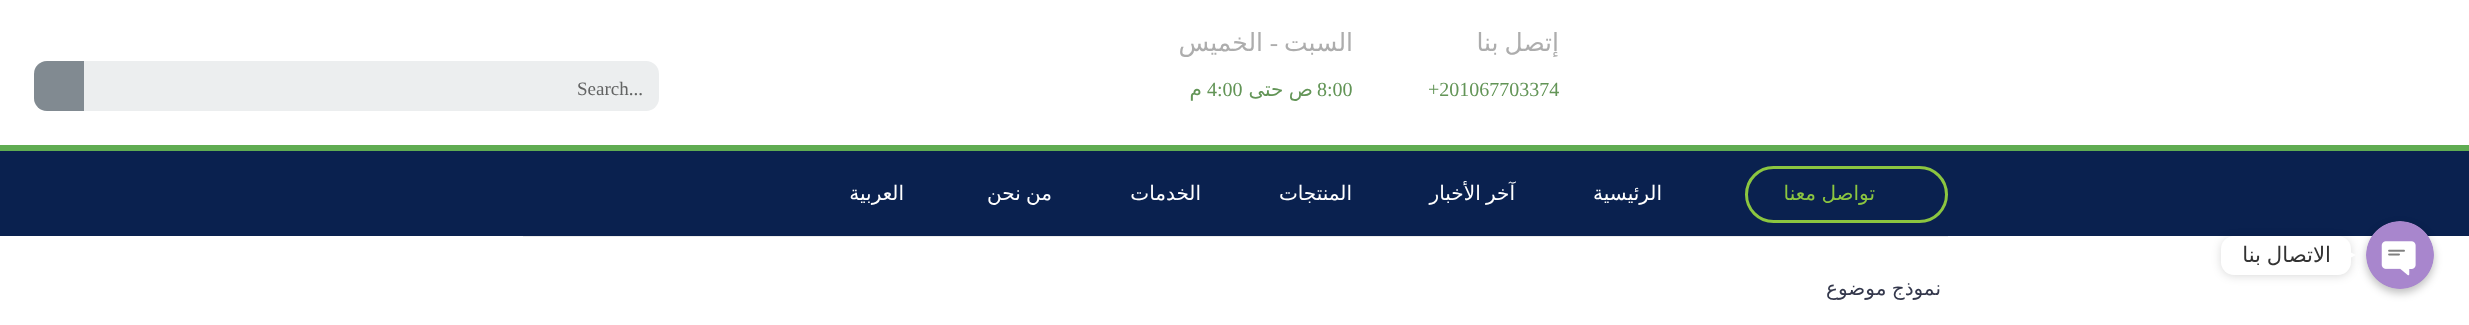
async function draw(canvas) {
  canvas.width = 2469
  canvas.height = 325
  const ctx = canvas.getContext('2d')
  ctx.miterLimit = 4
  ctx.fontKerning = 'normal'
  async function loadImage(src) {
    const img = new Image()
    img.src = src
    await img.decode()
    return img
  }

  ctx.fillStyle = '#fff'
  ctx.fillRect(0, 0, 2469, 325)
  ctx.fillStyle = '#0a214f'
  ctx.fillRect(0, 151, 2469, 85)
  ctx.fillStyle = '#00000040'
  ctx.filter = 'blur(4px)'
  ctx.beginPath()
  ctx.roundRect(2366, 225, 68, 68, 34)
  ctx.fill()
  ctx.filter = 'none'
  ctx.drawImage(await loadImage('image0.png'), 2366, 221, 68, 68)
  ctx.fillStyle = '#00000026'
  ctx.filter = 'blur(5px)'
  ctx.beginPath()
  ctx.roundRect(2221, 238, 130, 38, 13)
  ctx.fill()
  ctx.filter = 'none'
  ctx.fillStyle = '#fff'
  ctx.beginPath()
  ctx.roundRect(2221, 236, 130, 39, 13)
  ctx.fill()
  ctx.beginPath()
  ctx.moveTo(2344, 261)
  ctx.lineTo(2344, 249)
  ctx.lineTo(2356, 255)
  ctx.closePath()
  ctx.fill()
  ctx.wordSpacing = '-1px'
  ctx.direction = 'rtl'
  ctx.font = '21.25px DejaVu Sans'
  ctx.fillStyle = '#333'
  ctx.fillText('الاتصال بنا', 2331, 262)
  ctx.wordSpacing = '-2px'
  ctx.font = '25px DejaVu Sans'
  ctx.fillStyle = '#adadad'
  ctx.fillText('إتصل بنا', 1559, 51)
  ctx.wordSpacing = '0px'
  ctx.direction = 'ltr'
  ctx.font = '20px Liberation Serif'
  ctx.fillStyle = '#639557'
  ctx.fillText('+201067703374', 1428, 96)
  ctx.direction = 'rtl'
  ctx.font = '25px DejaVu Sans'
  ctx.fillStyle = '#adadad'
  ctx.fillText('السبت', 1353, 51)
  ctx.font = '25px Liberation Serif'
  ctx.fillText('-', 1278, 51)
  ctx.font = '25px DejaVu Sans'
  ctx.fillText('الخميس', 1263, 51)
  ctx.direction = 'ltr'
  ctx.font = '20px Liberation Serif'
  ctx.fillStyle = '#639557'
  ctx.fillText('8:00', 1317, 96)
  ctx.wordSpacing = '-1px'
  ctx.direction = 'rtl'
  ctx.font = '20px DejaVu Sans'
  ctx.fillText('ص حتى', 1313, 96)
  ctx.wordSpacing = '0px'
  ctx.direction = 'ltr'
  ctx.font = '20px Liberation Serif'
  ctx.fillText('4:00', 1207, 96)
  ctx.direction = 'rtl'
  ctx.font = '20px DejaVu Sans'
  ctx.fillText('م', 1202, 96)
  ctx.fillStyle = '#eceeef'
  ctx.beginPath()
  ctx.roundRect(34, 61, 625, 50, 13)
  ctx.fill()
  ctx.direction = 'ltr'
  ctx.font = '19px Liberation Serif'
  ctx.fillStyle = '#626363'
  ctx.fillText('Search...', 577, 95)
  ctx.fillStyle = '#818a91'
  ctx.beginPath()
  ctx.roundRect(34, 61, 50, 50, [13, 0, 0, 13])
  ctx.fill()
  ctx.fillStyle = '#60ac52'
  ctx.fillRect(0, 145, 2469, 6)
  ctx.beginPath()
  ctx.roundRect(1746.5, 167.5, 200, 54, 27)
  ctx.strokeStyle = '#8cc640'
  ctx.lineWidth = 3
  ctx.stroke()
  ctx.wordSpacing = '-1px'
  ctx.direction = 'rtl'
  ctx.font = '20px DejaVu Sans'
  ctx.fillStyle = '#8cc640'
  ctx.fillText('تواصل معنا', 1875, 200)
  ctx.wordSpacing = '0px'
  ctx.fillStyle = '#fff'
  ctx.fillText('الرئيسية', 1662, 200)
  ctx.wordSpacing = '-1px'
  ctx.fillText('آخر الأخبار', 1515, 200)
  ctx.wordSpacing = '0px'
  ctx.fillText('المنتجات', 1352, 200)
  ctx.fillText('الخدمات', 1201, 200)
  ctx.wordSpacing = '-1px'
  ctx.fillText('من نحن', 1052, 200)
  ctx.wordSpacing = '0px'
  ctx.fillText('العربية', 904, 200)
  ctx.fillStyle = '#ececec'
  ctx.fillRect(523, 236, 1425, 1)
  ctx.wordSpacing = '-1px'
  ctx.fillStyle = '#34384c'
  ctx.fillText('نموذج موضوع', 1941, 295)
}

draw(document.querySelector('canvas'))
